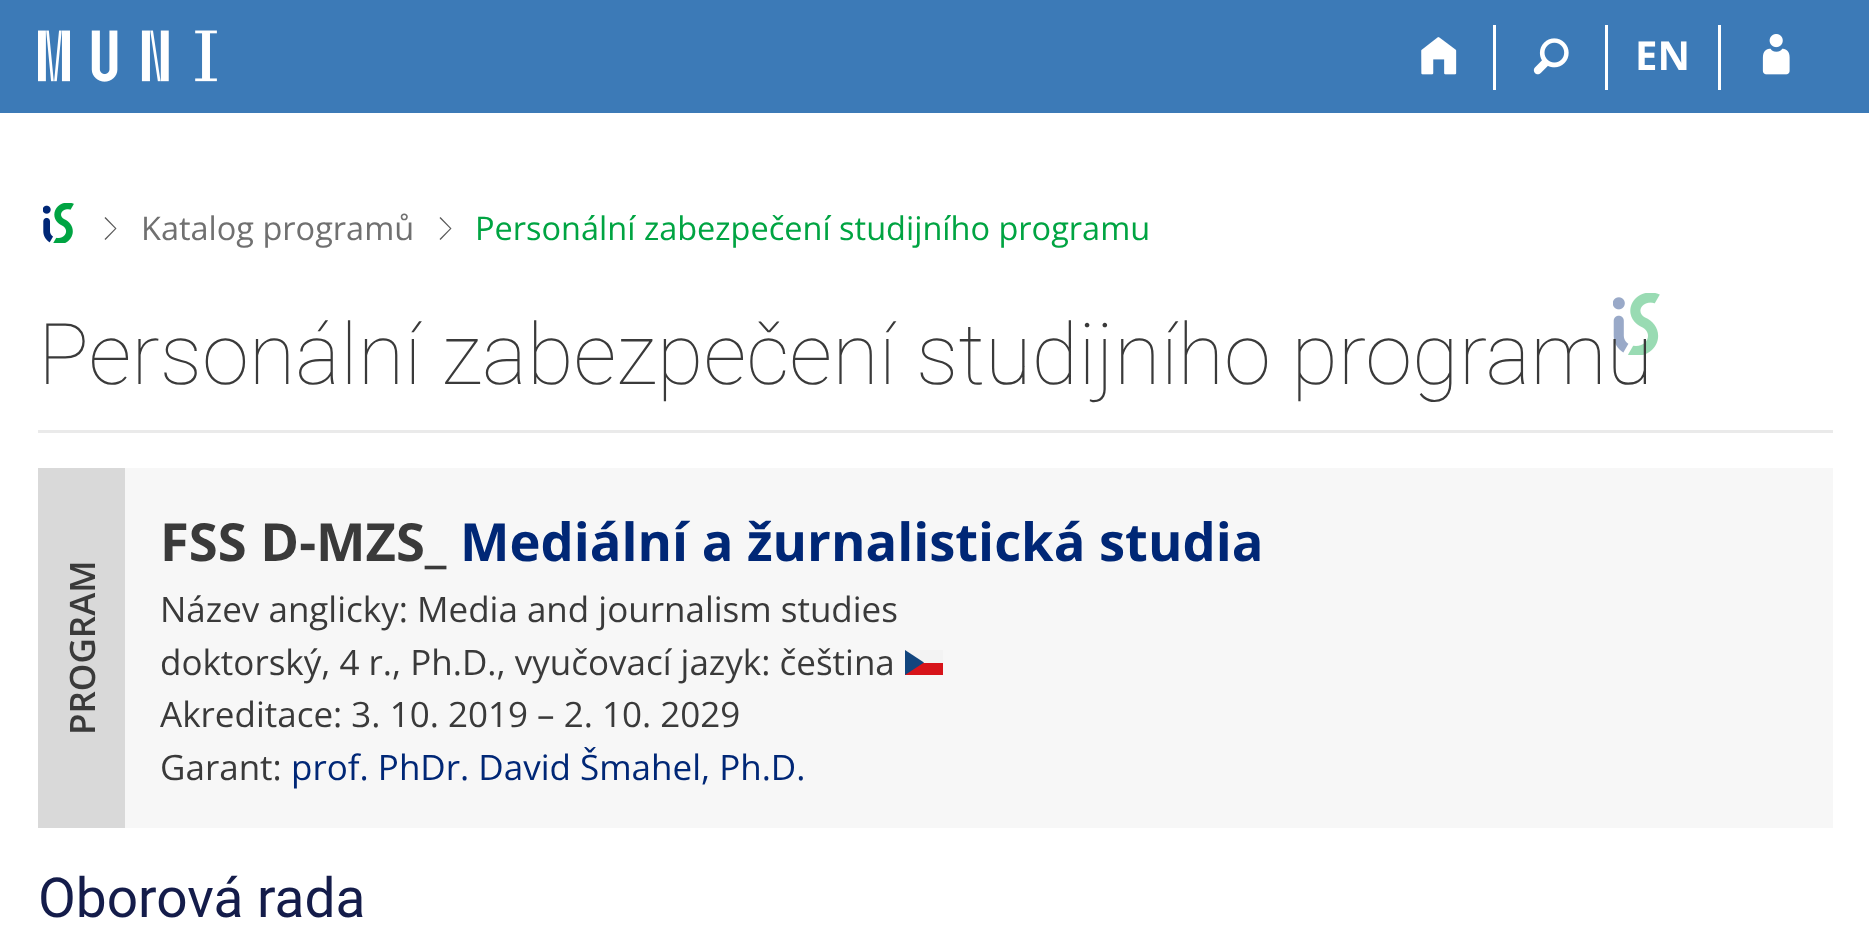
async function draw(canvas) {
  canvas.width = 1869
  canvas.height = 932
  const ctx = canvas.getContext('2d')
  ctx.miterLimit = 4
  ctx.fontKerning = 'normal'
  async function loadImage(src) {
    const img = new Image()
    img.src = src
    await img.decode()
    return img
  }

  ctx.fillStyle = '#fff'
  ctx.fillRect(0, 0, 1869, 932)
  ctx.fillStyle = '#3c7ab7'
  ctx.fillRect(0, 0, 1869, 113)
  ctx.drawImage(await loadImage('image0.png'), 38, 30, 179, 52)
  ctx.fillStyle = '#fff'
  ctx.fillRect(1493, 25, 3, 65)
  ctx.drawImage(await loadImage('image1.png'), 1421, 37, 36, 38)
  ctx.fillRect(1605, 25, 3, 65)
  ctx.drawImage(await loadImage('image2.png'), 1533, 38, 36, 37)
  ctx.fillRect(1718, 25, 3, 65)
  ctx.font = 'bold 40px Open Sans'
  ctx.fillText('EN', 1635, 70)
  ctx.drawImage(await loadImage('image3.png'), 1762, 34, 28, 41)
  ctx.drawImage(await loadImage('image4.png'), 43, 203, 31, 40)
  ctx.fillStyle = '#5a5a5a'
  ctx.beginPath()
  ctx.moveTo(105.5, 240)
  ctx.lineTo(104.5, 239)
  ctx.lineTo(115, 228.5)
  ctx.lineTo(104.5, 218)
  ctx.lineTo(105.5, 217)
  ctx.lineTo(116.5, 228.5)
  ctx.closePath()
  ctx.fill()
  ctx.font = '32.5px Open Sans'
  ctx.fillStyle = '#707070'
  ctx.fillText('Katalog programů', 141, 240)
  ctx.fillStyle = '#5a5a5a'
  ctx.beginPath()
  ctx.moveTo(440.5, 240)
  ctx.lineTo(439.5, 239)
  ctx.lineTo(450, 228.5)
  ctx.lineTo(439.5, 218)
  ctx.lineTo(440.5, 217)
  ctx.lineTo(451.5, 228.5)
  ctx.closePath()
  ctx.fill()
  ctx.fillStyle = '#00a442'
  ctx.fillText('Personální zabezpečení studijního programu', 475, 240)
  ctx.drawImage(await loadImage('image5.png'), 1613, 293, 47, 62)
  ctx.font = '100 85px Roboto'
  ctx.fillStyle = '#3a3a3a'
  ctx.fillText('Personální zabezpečení studijního programu', 38, 384)
  ctx.fillStyle = '#eaeaea'
  ctx.fillRect(38, 430, 1795, 3)
  ctx.fillStyle = '#f7f7f7'
  ctx.fillRect(125, 468, 1708, 360)
  ctx.fillStyle = '#d9d9d9'
  ctx.fillRect(38, 468, 87, 360)
  ctx.font = '600 35px Open Sans'
  ctx.fillStyle = '#3a3a3a'
  ctx.save()
  ctx.translate(95, 735)
  ctx.rotate(-90 * Math.PI / 180)
  ctx.fillText('PROGRAM', 0, 0)
  ctx.restore()
  ctx.font = 'bold 52.5px Open Sans'
  ctx.fillText('FSS D-MZS_', 160, 561)
  ctx.fillStyle = '#002776'
  ctx.fillText('Mediální a žurnalistická studia', 460, 561)
  ctx.font = '35px Open Sans'
  ctx.fillStyle = '#3a3a3a'
  ctx.fillText('Název anglicky: Media and journalism studies', 160, 622)
  ctx.fillText('doktorský, 4 r., Ph.D., vyučovací jazyk: čeština', 160, 675)
  ctx.fillStyle = '#d7141a'
  ctx.fillRect(905, 663, 38, 12)
  ctx.fillStyle = '#f3f3f3'
  ctx.fillRect(905, 650, 38, 13)
  ctx.fillStyle = '#11457e'
  ctx.beginPath()
  ctx.moveTo(924, 662.5)
  ctx.lineTo(905, 650)
  ctx.lineTo(905, 675)
  ctx.closePath()
  ctx.fill()
  ctx.fillStyle = '#3a3a3a'
  ctx.fillText('Akreditace: 3. 10. 2019 – 2. 10. 2029', 160, 727)
  ctx.fillText('Garant:', 160, 780)
  ctx.fillStyle = '#002776'
  ctx.fillText('prof. PhDr. David Šmahel, Ph.D.', 291, 780)
  ctx.font = '55px Roboto'
  ctx.fillStyle = '#141c4a'
  ctx.fillText('Oborová rada', 38, 917)
}

draw(document.querySelector('canvas'))
